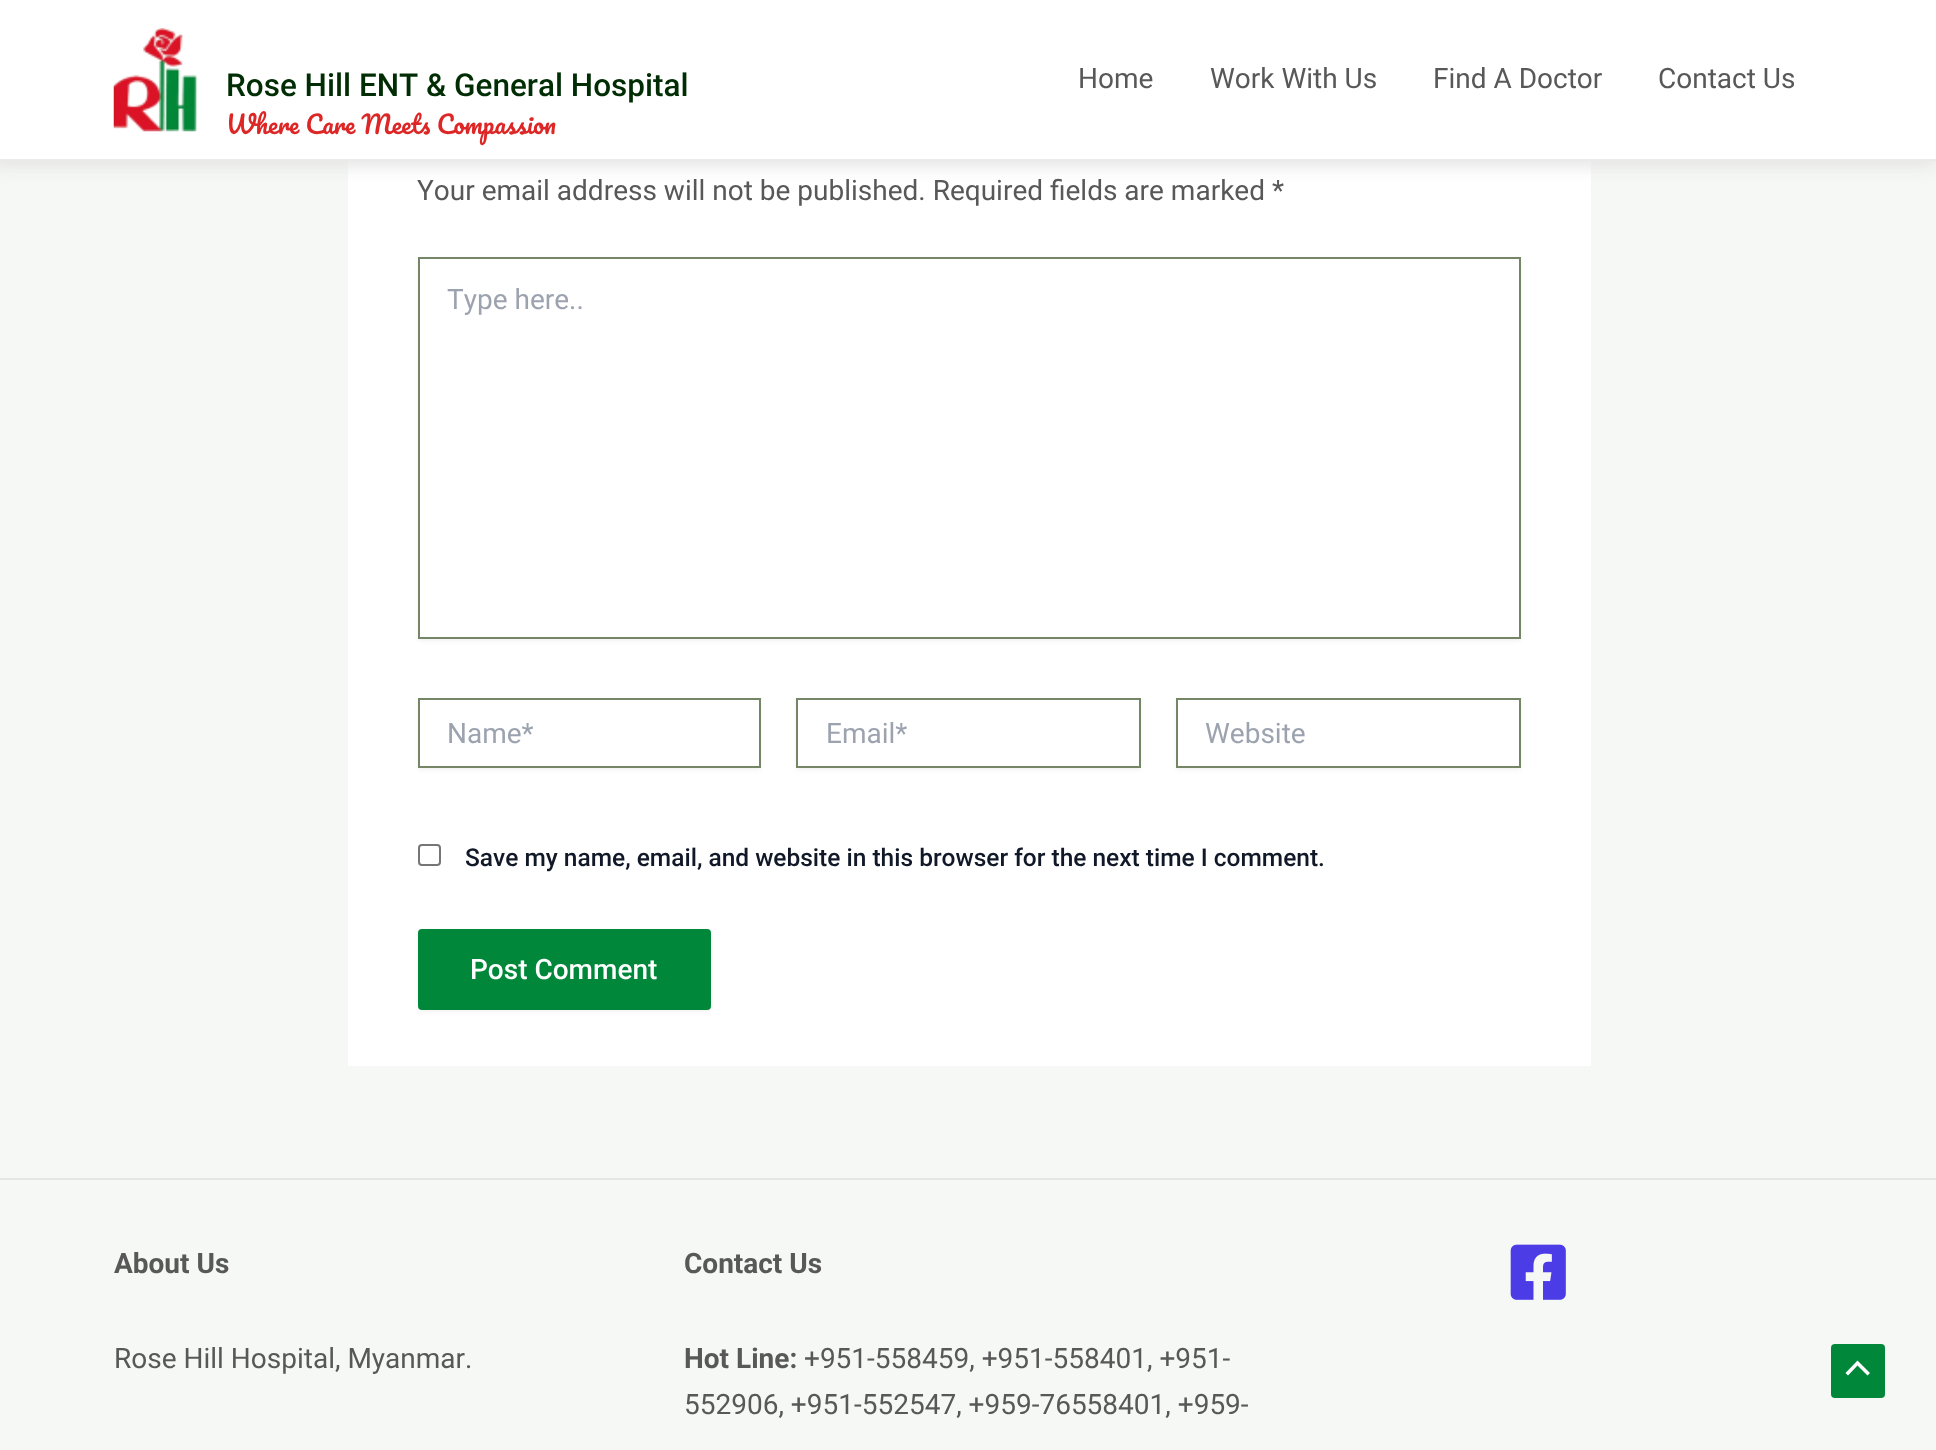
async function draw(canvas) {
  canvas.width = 1936
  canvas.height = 1450
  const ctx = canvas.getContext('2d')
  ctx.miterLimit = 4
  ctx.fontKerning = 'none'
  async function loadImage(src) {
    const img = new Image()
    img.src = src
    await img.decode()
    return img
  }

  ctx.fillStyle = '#f6f8f5'
  ctx.fillRect(0, 0, 1936, 1450)
  ctx.fillStyle = '#fff'
  ctx.fillRect(348, 161, 1243, 905)
  ctx.fillStyle = '#e1e1e1'
  ctx.filter = 'blur(9px)'
  ctx.beginPath()
  ctx.rect(-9, -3, 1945, 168)
  ctx.fill()
  ctx.filter = 'none'
  ctx.fillStyle = '#fff'
  ctx.fillRect(0, 0, 1936, 159)
  ctx.fillStyle = '#eaeaea'
  ctx.fillRect(0, 159, 1936, 2)
  ctx.drawImage(await loadImage('image0.png'), 113, 28, 85, 104)
  ctx.font = '500 31.5px Roboto'
  ctx.fillStyle = '#002d04'
  ctx.fillText('Rose Hill ENT & General Hospital', 226, 96)
  ctx.font = '24.5px Pacifico'
  ctx.fillStyle = '#dd2626'
  ctx.fillText('Where Care Meets Compassion', 226, 134)
  ctx.font = '28px Roboto'
  ctx.fillStyle = '#585858'
  ctx.fillText('Home', 1078, 88)
  ctx.fillText('Work With Us', 1210, 88)
  ctx.fillText('Find A Doctor', 1433, 88)
  ctx.fillText('Contact Us', 1658, 88)
  ctx.fillText('Your email address will not be published. Required fields are marked *', 417, 200)
  ctx.fillStyle = '#0000000d'
  ctx.filter = 'blur(2px)'
  ctx.beginPath()
  ctx.rect(418, 259, 1103, 382)
  ctx.fill()
  ctx.filter = 'none'
  ctx.fillStyle = '#fff'
  ctx.beginPath()
  ctx.rect(419, 258, 1101, 380)
  ctx.fill()
  ctx.strokeStyle = '#758666'
  ctx.lineWidth = 2
  ctx.stroke()
  ctx.fillStyle = '#9ca3af'
  ctx.fillText('Type here..', 447, 309)
  ctx.fillStyle = '#0000000d'
  ctx.filter = 'blur(2px)'
  ctx.beginPath()
  ctx.rect(418, 700, 343, 70)
  ctx.fill()
  ctx.filter = 'none'
  ctx.fillStyle = '#fff'
  ctx.beginPath()
  ctx.rect(419, 699, 341, 68)
  ctx.fill()
  ctx.stroke()
  ctx.fillStyle = '#9ca3af'
  ctx.fillText('Name*', 447, 743)
  ctx.fillStyle = '#0000000d'
  ctx.filter = 'blur(2px)'
  ctx.beginPath()
  ctx.rect(796, 700, 345, 70)
  ctx.fill()
  ctx.filter = 'none'
  ctx.fillStyle = '#fff'
  ctx.beginPath()
  ctx.rect(797, 699, 343, 68)
  ctx.fill()
  ctx.stroke()
  ctx.fillStyle = '#9ca3af'
  ctx.fillText('Email*', 826, 743)
  ctx.fillStyle = '#0000000d'
  ctx.filter = 'blur(2px)'
  ctx.beginPath()
  ctx.rect(1176, 700, 345, 70)
  ctx.fill()
  ctx.filter = 'none'
  ctx.fillStyle = '#fff'
  ctx.beginPath()
  ctx.rect(1177, 699, 343, 68)
  ctx.fill()
  ctx.stroke()
  ctx.fillStyle = '#9ca3af'
  ctx.fillText('Website', 1205, 743)
  ctx.beginPath()
  ctx.roundRect(419, 845, 21, 20, 3)
  ctx.strokeStyle = '#767676'
  ctx.stroke()
  ctx.font = '500 24.5px Roboto'
  ctx.fillStyle = '#111827'
  ctx.fillText('Save my name, email, and website in this browser for the next time I comment.', 465, 866)
  ctx.fillStyle = '#0000000d'
  ctx.filter = 'blur(2px)'
  ctx.beginPath()
  ctx.roundRect(418, 931, 293, 81, 4)
  ctx.fill()
  ctx.filter = 'none'
  ctx.fillStyle = '#018739'
  ctx.beginPath()
  ctx.roundRect(418, 929, 293, 81, 4)
  ctx.fill()
  ctx.font = '500 28px Roboto'
  ctx.fillStyle = '#fff'
  ctx.fillText('Post Comment', 470, 979)
  ctx.fillStyle = '#e6e6e6'
  ctx.fillRect(0, 1178, 1936, 2)
  ctx.font = 'bold 28px Roboto'
  ctx.fillStyle = '#585858'
  ctx.fillText('About Us', 114, 1273)
  ctx.font = '28px Roboto'
  ctx.fillText('Rose Hill Hospital, Myanmar.', 114, 1368)
  ctx.font = 'bold 28px Roboto'
  ctx.fillText('Contact Us', 684, 1273)
  ctx.fillText('Hot Line:', 684, 1368)
  ctx.font = '28px Roboto'
  ctx.fillText('+951-558459, +951-558401, +951-', 804, 1368)
  ctx.fillText('552906, +951-552547, +959-76558401, +959-', 684, 1414)
  ctx.drawImage(await loadImage('image1.png'), 1510, 1244, 56, 56)
  ctx.fillStyle = '#018739'
  ctx.beginPath()
  ctx.roundRect(1831, 1344, 54, 54, 4)
  ctx.fill()
  ctx.fillStyle = '#fff'
  ctx.beginPath()
  ctx.moveTo(1870, 1373)
  ctx.lineTo(1857.5, 1360.5)
  ctx.lineTo(1845.5, 1373)
  ctx.lineTo(1848, 1375.5)
  ctx.lineTo(1857.5, 1365.5)
  ctx.lineTo(1867.5, 1375.5)
  ctx.closePath()
  ctx.fill()
}

draw(document.querySelector('canvas'))
